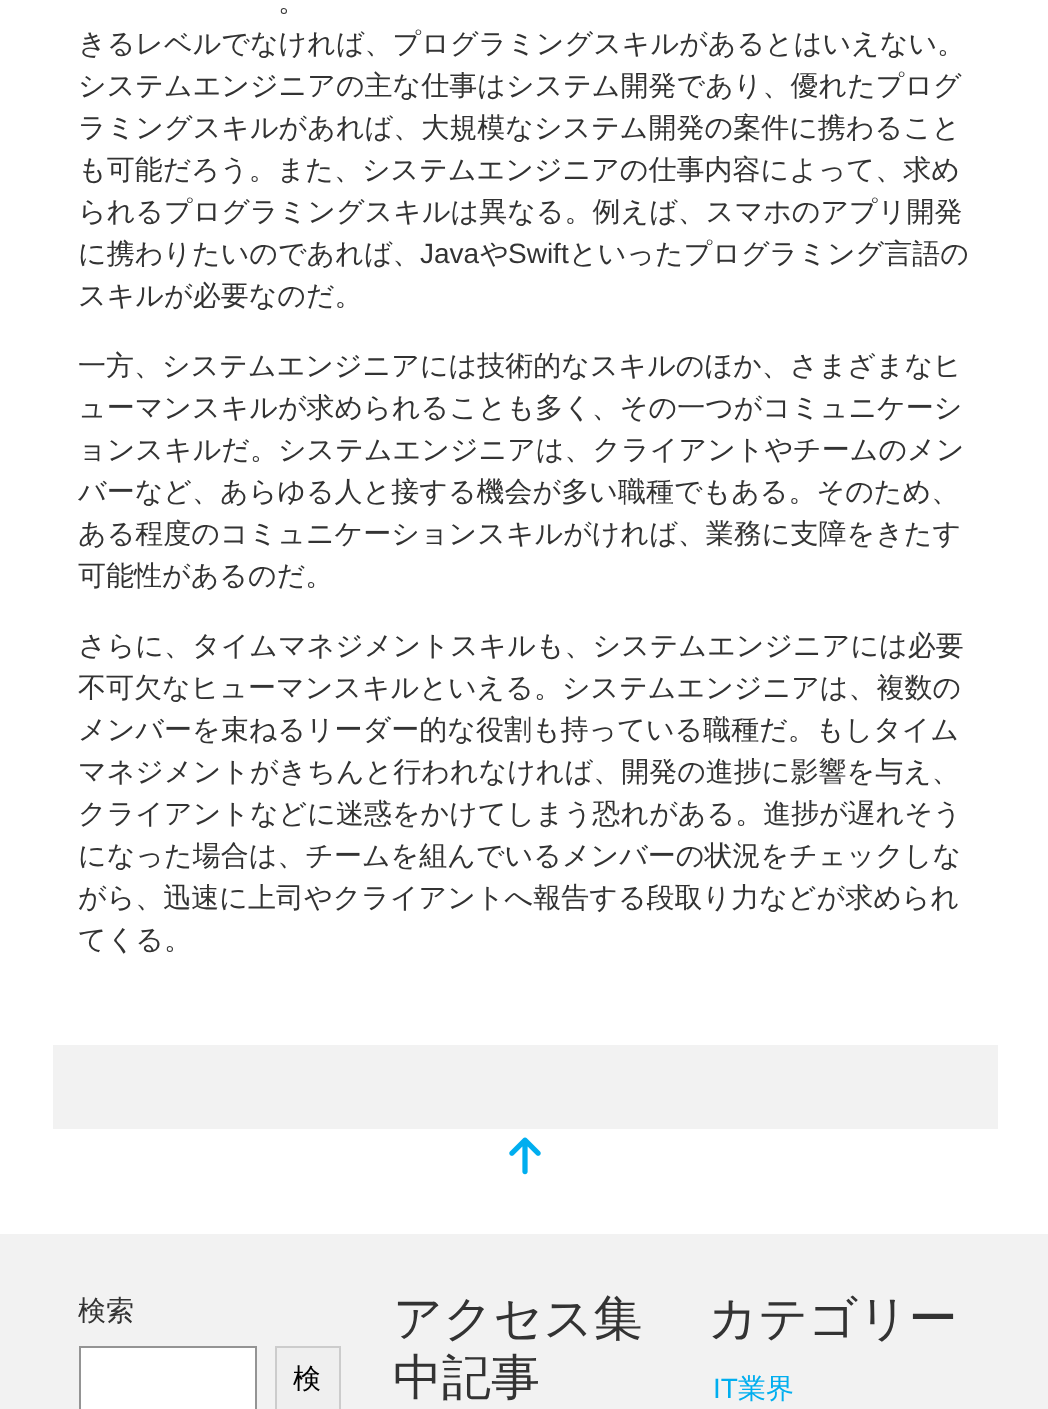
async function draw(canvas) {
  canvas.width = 1048
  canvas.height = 1409
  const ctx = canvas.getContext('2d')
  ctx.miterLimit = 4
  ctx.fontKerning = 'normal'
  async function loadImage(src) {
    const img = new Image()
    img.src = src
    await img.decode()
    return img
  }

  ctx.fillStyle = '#fff'
  ctx.fillRect(0, 0, 1048, 1409)
  ctx.font = '500 28px WenQuanYi Zen Hei'
  ctx.fillStyle = '#333'
  ctx.fillText('。', 278, 11)
  ctx.fillText('きるレベルでなければ、プログラミングスキルがあるとはいえない。', 78, 53)
  ctx.fillText('システムエンジニアの主な仕事はシステム開発であり、優れたプログ', 78, 95)
  ctx.fillText('ラミングスキルがあれば、大規模なシステム開発の案件に携わること', 78, 137)
  ctx.fillText('も可能だろう。また、システムエンジニアの仕事内容によって、求め', 78, 179)
  ctx.fillText('られるプログラミングスキルは異なる。例えば、スマホのアプリ開発', 78, 221)
  ctx.fillText('に携わりたいのであれば、', 78, 263)
  ctx.font = '28px Liberation Sans'
  ctx.fillText('Java', 420, 263)
  ctx.font = '500 28px WenQuanYi Zen Hei'
  ctx.fillText('や', 480, 263)
  ctx.font = '28px Liberation Sans'
  ctx.fillText('Swift', 508, 263)
  ctx.font = '500 28px WenQuanYi Zen Hei'
  ctx.fillText('といったプログラミング言語の', 569, 263)
  ctx.fillText('スキルが必要なのだ。', 78, 305)
  ctx.fillText('一方、システムエンジニアには技術的なスキルのほか、さまざまなヒ', 78, 375)
  ctx.fillText('ューマンスキルが求められることも多く、その一つがコミュニケーシ', 78, 417)
  ctx.fillText('ョンスキルだ。システムエンジニアは、クライアントやチームのメン', 78, 459)
  ctx.fillText('バーなど、あらゆる人と接する機会が多い職種でもある。そのため、', 78, 501)
  ctx.fillText('ある程度のコミュニケーションスキルがければ、業務に支障をきたす', 78, 543)
  ctx.fillText('可能性があるのだ。', 78, 585)
  ctx.fillText('さらに、タイムマネジメントスキルも、システムエンジニアには必要', 78, 655)
  ctx.fillText('不可欠なヒューマンスキルといえる。システムエンジニアは、複数の', 78, 697)
  ctx.fillText('メンバーを束ねるリーダー的な役割も持っている職種だ。もしタイム', 78, 739)
  ctx.fillText('マネジメントがきちんと行われなければ、開発の進捗に影響を与え、', 78, 781)
  ctx.fillText('クライアントなどに迷惑をかけてしまう恐れがある。進捗が遅れそう', 78, 823)
  ctx.fillText('になった場合は、チームを組んでいるメンバーの状況をチェックしな', 78, 865)
  ctx.fillText('がら、迅速に上司やクライアントへ報告する段取り力などが求められ', 78, 907)
  ctx.fillText('てくる。', 78, 949)
  ctx.fillStyle = '#f2f2f2'
  ctx.fillRect(53, 1045, 945, 84)
  ctx.drawImage(await loadImage('image0.png'), 509, 1137, 32, 38)
  ctx.fillRect(0, 1234, 1048, 175)
  ctx.fillStyle = '#333'
  ctx.fillText('検索', 78, 1320)
  ctx.fillStyle = '#fff'
  ctx.beginPath()
  ctx.rect(80, 1347, 176, 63)
  ctx.fill()
  ctx.strokeStyle = '#949494'
  ctx.lineWidth = 2
  ctx.stroke()
  ctx.fillStyle = '#efefef'
  ctx.beginPath()
  ctx.rect(276, 1347, 64, 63)
  ctx.fill()
  ctx.strokeStyle = '#ccc'
  ctx.stroke()
  ctx.fillStyle = '#000'
  ctx.fillText('検', 293, 1388)
  ctx.font = '500 49px WenQuanYi Zen Hei'
  ctx.fillStyle = '#333'
  ctx.fillText('アクセス集', 393, 1335)
  ctx.fillText('中記事', 393, 1394)
  ctx.fillText('カテゴリー', 708, 1335)
  ctx.font = '28px Liberation Sans'
  ctx.fillStyle = '#00aeef'
  ctx.fillText('IT', 713, 1398)
  ctx.font = '500 28px WenQuanYi Zen Hei'
  ctx.fillText('業界', 738, 1398)
}

draw(document.querySelector('canvas'))
